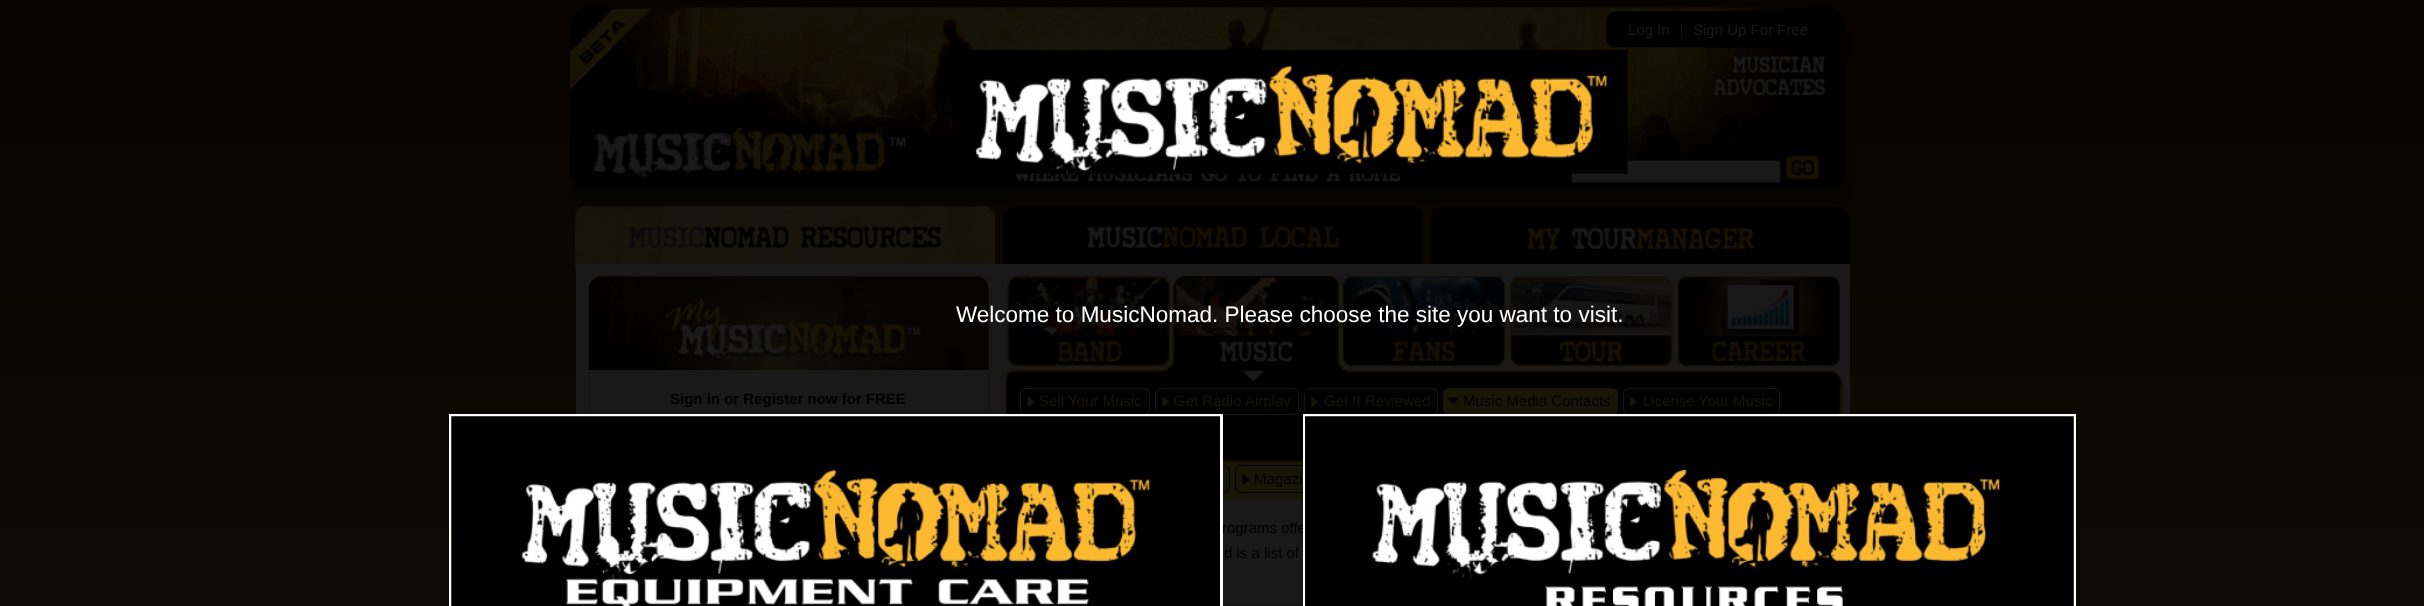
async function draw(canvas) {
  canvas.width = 2424
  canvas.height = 606
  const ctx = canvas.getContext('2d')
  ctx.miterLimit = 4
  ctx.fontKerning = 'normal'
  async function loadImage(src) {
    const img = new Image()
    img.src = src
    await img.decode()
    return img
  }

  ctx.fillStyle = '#fff'
  ctx.fillRect(0, 0, 2424, 606)
  ctx.drawImage(await loadImage('image0.png'), 0, 0, 2424, 6)
  ctx.drawImage(await loadImage('image1.png'), 0, 6, 2424, 600)
  ctx.drawImage(await loadImage('image2.png'), 568, 7, 1288, 197)
  ctx.drawImage(await loadImage('image3.png'), 570, 8, 82, 82)
  ctx.drawImage(await loadImage('image4.png'), 1606, 11, 199, 37)
  ctx.font = '15px Liberation Sans'
  ctx.fillStyle = '#191919'
  ctx.fillText('Log In', 1628, 35)
  ctx.font = '15px Liberation Serif'
  ctx.fillText('|', 1680, 35)
  ctx.font = '15px Liberation Sans'
  ctx.fillText('Sign Up For Free', 1693, 35)
  ctx.beginPath()
  ctx.roundRect(1571.5, 160.5, 209, 22, 2)
  ctx.fill()
  ctx.strokeStyle = '#0c0c0c'
  ctx.stroke()
  ctx.drawImage(await loadImage('image5.png'), 1786, 156, 33, 23)
  ctx.drawImage(await loadImage('image6.png'), 575, 206, 420, 63)
  ctx.drawImage(await loadImage('image7.png'), 1003, 206, 420, 58)
  ctx.drawImage(await loadImage('image8.png'), 1431, 207, 419, 57)
  ctx.drawImage(await loadImage('image9.png'), 952, 50, 676, 124)
  ctx.fillRect(576, 264, 1274, 341)
  ctx.drawImage(await loadImage('image12.png'), 588, 276, 401, 94)
  ctx.drawImage(await loadImage('image13.png'), 1005, 276, 838, 109)
  ctx.drawImage(await loadImage('image14.png'), 1007, 276, 163, 91)
  ctx.drawImage(await loadImage('image15.png'), 1175, 276, 163, 86)
  ctx.drawImage(await loadImage('image16.png'), 1342, 276, 163, 91)
  ctx.drawImage(await loadImage('image17.png'), 1510, 276, 163, 91)
  ctx.font = '22.5px Liberation Sans'
  ctx.fillStyle = '#fff'
  ctx.fillText('Welcome to MusicNomad. Please choose the site you want to visit.', 956, 322)
  ctx.drawImage(await loadImage('image19.png'), 1005, 385, 838, 65)
  ctx.drawImage(await loadImage('image20.png'), 1027, 396, 8, 12)
  ctx.beginPath()
  ctx.roundRect(1020.5, 388.5, 129, 26, 5.5)
  ctx.strokeStyle = '#181509'
  ctx.stroke()
  ctx.drawImage(await loadImage('image21.png'), 1162, 396, 8, 12)
  ctx.beginPath()
  ctx.roundRect(1155.5, 388.5, 143, 26, 5.5)
  ctx.stroke()
  ctx.fillStyle = '#181509'
  ctx.fillRect(1223, 462, 80, 38)
  ctx.beginPath()
  ctx.roundRect(1020.5, 465.5, 209, 27, 5.5)
  ctx.strokeStyle = '#000'
  ctx.stroke()
  ctx.font = '15px Liberation Sans'
  ctx.fillStyle = '#000'
  ctx.fillText('rograms offe', 1222, 533)
  ctx.strokeStyle = '#141414'
  ctx.strokeRect(1005.5, 605.5, 827, 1)
  ctx.strokeStyle = '#fff'
  ctx.lineWidth = 3
  ctx.strokeRect(450.5, 415.5, 771, 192)
  ctx.drawImage(await loadImage('image10.png'), 451, 416, 769, 190)
  ctx.drawImage(await loadImage('image22.png'), 1311, 396, 8, 12)
  ctx.beginPath()
  ctx.roundRect(1304.5, 388.5, 133, 26, 5.5)
  ctx.strokeStyle = '#181509'
  ctx.lineWidth = 1
  ctx.stroke()
  ctx.fillStyle = '#181509'
  ctx.beginPath()
  ctx.roundRect(1443, 388, 175, 27, 6)
  ctx.fill()
  ctx.drawImage(await loadImage('image23.png'), 1447, 397, 12, 8)
  ctx.beginPath()
  ctx.roundRect(1443.5, 388.5, 174, 26, 5.5)
  ctx.stroke()
  ctx.drawImage(await loadImage('image24.png'), 1630, 396, 8, 12)
  ctx.beginPath()
  ctx.roundRect(1623.5, 388.5, 156, 26, 5.5)
  ctx.stroke()
  ctx.drawImage(await loadImage('image26.png'), 1242, 473, 8, 12)
  ctx.beginPath()
  ctx.roundRect(1235.5, 465.5, 198, 27, 5.5)
  ctx.strokeStyle = '#000'
  ctx.stroke()
  ctx.strokeStyle = '#fff'
  ctx.lineWidth = 3
  ctx.strokeRect(1304.5, 415.5, 770, 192)
  ctx.drawImage(await loadImage('image11.png'), 1305, 416, 769, 190)
  ctx.fillStyle = '#141414'
  ctx.fillRect(988, 370, 1, 44)
  ctx.fillRect(589, 370, 1, 44)
  ctx.font = 'bold 15px Liberation Sans'
  ctx.fillStyle = '#000'
  ctx.fillText('Sign in or Register now for FREE', 670, 404)
  ctx.drawImage(await loadImage('image18.png'), 1677, 276, 163, 91)
  ctx.font = '15px Liberation Sans'
  ctx.fillStyle = '#181509'
  ctx.fillText('Sell Your Music', 1039, 406)
  ctx.fillText('Get Radio Airplay', 1174, 406)
  ctx.fillText('Get It Reviewed', 1324, 406)
  ctx.fillStyle = '#000'
  ctx.fillText('Music Media Contacts', 1463, 406)
  ctx.fillStyle = '#181509'
  ctx.fillText('License Your Music', 1643, 406)
  ctx.drawImage(await loadImage('image25.png'), 1223, 450, 80, 13)
  ctx.fillStyle = '#000'
  ctx.fillText('Magazi', 1254, 484)
  ctx.fillText('d is a list of', 1224, 558)
}

draw(document.querySelector('canvas'))
